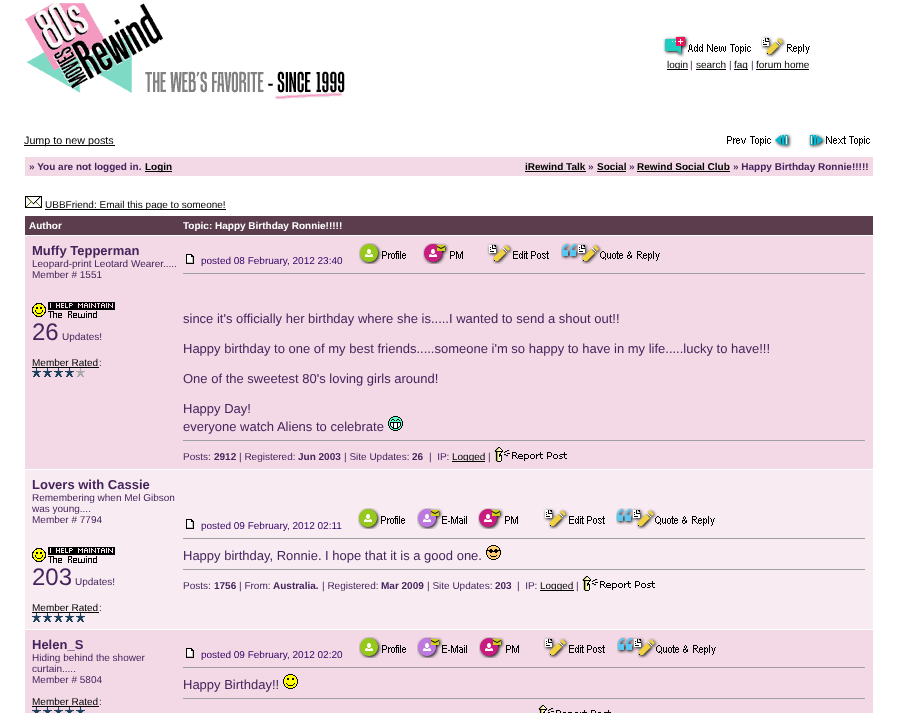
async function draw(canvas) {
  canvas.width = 898
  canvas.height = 713
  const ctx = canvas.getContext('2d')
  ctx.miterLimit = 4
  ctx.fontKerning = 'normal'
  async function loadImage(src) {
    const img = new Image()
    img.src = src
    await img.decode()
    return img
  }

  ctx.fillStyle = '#fff'
  ctx.fillRect(0, 0, 898, 713)
  ctx.drawImage(await loadImage('image0.png'), 25, 3, 320, 97)
  ctx.drawImage(await loadImage('image1.png'), 663, 36, 88, 21)
  ctx.drawImage(await loadImage('image2.png'), 761, 36, 49, 21)
  ctx.fillStyle = '#000'
  ctx.fillRect(667, 69, 21, 1)
  ctx.font = '10px Liberation Sans'
  ctx.fillText('login', 667, 68)
  ctx.fillStyle = '#45235c'
  ctx.fillText('|', 690, 68)
  ctx.fillStyle = '#000'
  ctx.fillText('search', 696, 68)
  ctx.fillRect(696, 69, 30, 1)
  ctx.fillStyle = '#45235c'
  ctx.fillText('|', 729, 68)
  ctx.fillStyle = '#000'
  ctx.fillRect(734, 69, 14, 1)
  ctx.fillText('faq', 734, 68)
  ctx.fillStyle = '#45235c'
  ctx.fillText('|', 751, 68)
  ctx.fillStyle = '#000'
  ctx.fillText('forum home', 756, 68)
  ctx.fillRect(756, 69, 53, 1)
  ctx.fillRect(24, 145, 91, 1)
  ctx.font = '10.75px Liberation Sans'
  ctx.fillText('Jump to new posts', 24, 144)
  ctx.drawImage(await loadImage('image3.png'), 727, 133, 65, 16)
  ctx.drawImage(await loadImage('image4.png'), 808, 133, 62, 16)
  ctx.fillStyle = '#f2d9e5'
  ctx.fillRect(25, 157, 848, 19)
  ctx.font = 'bold 10px Liberation Sans'
  ctx.fillStyle = '#45235c'
  ctx.fillText('» You are not logged in.', 29, 170)
  ctx.fillStyle = '#000'
  ctx.fillRect(145, 171, 27, 1)
  ctx.fillText('Login', 145, 170)
  ctx.fillText('iRewind Talk', 525, 170)
  ctx.fillRect(525, 171, 61, 1)
  ctx.fillStyle = '#45235c'
  ctx.fillText('»', 588, 170)
  ctx.fillStyle = '#000'
  ctx.fillText('Social', 597, 170)
  ctx.fillRect(597, 171, 29, 1)
  ctx.fillStyle = '#45235c'
  ctx.fillText('»', 629, 170)
  ctx.fillStyle = '#000'
  ctx.fillRect(637, 171, 93, 1)
  ctx.fillText('Rewind Social Club', 637, 170)
  ctx.fillStyle = '#45235c'
  ctx.fillText('» Happy Birthday Ronnie!!!!!', 733, 170)
  ctx.drawImage(await loadImage('image5.png'), 25, 196, 17, 12)
  ctx.fillStyle = '#000'
  ctx.fillRect(45, 209, 181, 1)
  ctx.font = '10px Liberation Sans'
  ctx.fillText('UBBFriend: Email this page to someone!', 45, 208)
  ctx.fillStyle = '#5c3d4d'
  ctx.fillRect(25, 216, 848, 19)
  ctx.font = 'bold 10px Liberation Sans'
  ctx.fillStyle = '#fff'
  ctx.fillText('Author', 29, 229)
  ctx.fillText('Topic: Happy Birthday Ronnie!!!!!', 183, 229)
  ctx.fillStyle = '#f2d9e5'
  ctx.fillRect(25, 236, 848, 233)
  ctx.font = 'bold 13px Liberation Sans'
  ctx.fillStyle = '#45235c'
  ctx.fillText('Muffy Tepperman', 32, 255)
  ctx.font = '10px Liberation Sans'
  ctx.fillText('Leopard-print Leotard Wearer.....', 32, 267)
  ctx.fillText('Member # 1551', 32, 278)
  ctx.drawImage(await loadImage('image6.png'), 32, 302, 83, 16)
  ctx.font = '24px Liberation Sans'
  ctx.fillText('26', 32, 340)
  ctx.font = '10px Liberation Sans'
  ctx.fillText('Updates!', 62, 340)
  ctx.fillStyle = '#000'
  ctx.fillText('Member Rated', 32, 366)
  ctx.fillStyle = '#45235c'
  ctx.fillText(':', 99, 366)
  ctx.fillStyle = '#000'
  ctx.fillRect(32, 367, 67, 1)
  ctx.drawImage(await loadImage('image7.png'), 32, 368, 53, 9)
  ctx.drawImage(await loadImage('image8.png'), 186, 254, 8, 10)
  ctx.fillStyle = '#306'
  ctx.fillText('posted 08 February, 2012 23:40', 201, 264)
  ctx.drawImage(await loadImage('image9.png'), 359, 243, 47, 21)
  ctx.drawImage(await loadImage('image10.png'), 423, 243, 40, 21)
  ctx.drawImage(await loadImage('image11.png'), 487, 243, 62, 21)
  ctx.drawImage(await loadImage('image12.png'), 561, 243, 99, 21)
  ctx.fillStyle = '#9f9f9f'
  ctx.fillRect(183, 273, 683, 1)
  ctx.fillStyle = '#eee'
  ctx.fillRect(865, 273, 1, 1)
  ctx.font = '13px Liberation Sans'
  ctx.fillStyle = '#45235c'
  ctx.fillText('since it\'s officially her birthday where she is.....I wanted to send a shout out!!', 183, 323)
  ctx.fillText('Happy birthday to one of my best friends.....someone i\'m so happy to have in my life.....lucky to have!!!', 183, 353)
  ctx.fillText('One of the sweetest 80\'s loving girls around!', 183, 383)
  ctx.fillText('Happy Day!', 183, 413)
  ctx.fillText('everyone watch Aliens to celebrate', 183, 431)
  ctx.drawImage(await loadImage('image13.png'), 388, 416, 15, 15)
  ctx.fillStyle = '#9f9f9f'
  ctx.fillRect(183, 440, 683, 1)
  ctx.fillStyle = '#eee'
  ctx.fillRect(865, 440, 1, 1)
  ctx.font = '10px Liberation Sans'
  ctx.fillStyle = '#45235c'
  ctx.fillText('Posts:', 183, 460)
  ctx.font = 'bold 10px Liberation Sans'
  ctx.fillText('2912', 214, 460)
  ctx.font = '10px Liberation Sans'
  ctx.fillText('| Registered:', 239, 460)
  ctx.font = 'bold 10px Liberation Sans'
  ctx.fillText('Jun 2003', 298, 460)
  ctx.font = '10px Liberation Sans'
  ctx.fillText('| Site Updates:', 344, 460)
  ctx.font = 'bold 10px Liberation Sans'
  ctx.fillText('26', 412, 460)
  ctx.font = '10px Liberation Sans'
  ctx.fillText('|  IP:', 429, 460)
  ctx.fillStyle = '#000'
  ctx.fillRect(452, 461, 33, 1)
  ctx.fillText('Logged', 452, 460)
  ctx.fillStyle = '#45235c'
  ctx.fillText('|', 488, 460)
  ctx.drawImage(await loadImage('image14.png'), 494, 447, 73, 15)
  ctx.fillStyle = '#f8ecf2'
  ctx.fillRect(25, 470, 848, 159)
  ctx.font = 'bold 13px Liberation Sans'
  ctx.fillStyle = '#45235c'
  ctx.fillText('Lovers with Cassie', 32, 489)
  ctx.font = '10px Liberation Sans'
  ctx.fillText('Remembering when Mel Gibson', 32, 501)
  ctx.fillText('was young....', 32, 512)
  ctx.fillText('Member # 7794', 32, 523)
  ctx.drawImage(await loadImage('image15.png'), 32, 547, 83, 16)
  ctx.font = '24px Liberation Sans'
  ctx.fillText('203', 32, 585)
  ctx.font = '10px Liberation Sans'
  ctx.fillText('Updates!', 75, 585)
  ctx.fillStyle = '#000'
  ctx.fillText('Member Rated', 32, 611)
  ctx.fillStyle = '#45235c'
  ctx.fillText(':', 99, 611)
  ctx.fillStyle = '#000'
  ctx.fillRect(32, 612, 67, 1)
  ctx.drawImage(await loadImage('image16.png'), 32, 613, 53, 9)
  ctx.drawImage(await loadImage('image17.png'), 186, 519, 8, 10)
  ctx.fillStyle = '#306'
  ctx.fillText('posted 09 February, 2012 02:11', 201, 529)
  ctx.drawImage(await loadImage('image18.png'), 358, 508, 47, 21)
  ctx.drawImage(await loadImage('image19.png'), 417, 508, 50, 21)
  ctx.drawImage(await loadImage('image20.png'), 478, 508, 40, 21)
  ctx.drawImage(await loadImage('image21.png'), 543, 508, 62, 21)
  ctx.drawImage(await loadImage('image22.png'), 616, 508, 99, 21)
  ctx.fillStyle = '#9f9f9f'
  ctx.fillRect(183, 538, 683, 1)
  ctx.fillStyle = '#eee'
  ctx.fillRect(865, 538, 1, 1)
  ctx.font = '13px Liberation Sans'
  ctx.fillStyle = '#45235c'
  ctx.fillText('Happy birthday, Ronnie. I hope that it is a good one.', 183, 560)
  ctx.drawImage(await loadImage('image23.png'), 486, 545, 15, 15)
  ctx.fillStyle = '#9f9f9f'
  ctx.fillRect(183, 569, 683, 1)
  ctx.fillStyle = '#eee'
  ctx.fillRect(865, 569, 1, 1)
  ctx.font = '10px Liberation Sans'
  ctx.fillStyle = '#45235c'
  ctx.fillText('Posts:', 183, 589)
  ctx.font = 'bold 10px Liberation Sans'
  ctx.fillText('1756', 214, 589)
  ctx.font = '10px Liberation Sans'
  ctx.fillText('| From:', 239, 589)
  ctx.font = 'bold 10px Liberation Sans'
  ctx.fillText('Australia.', 273, 589)
  ctx.font = '10px Liberation Sans'
  ctx.fillText('| Registered:', 322, 589)
  ctx.font = 'bold 10px Liberation Sans'
  ctx.fillText('Mar 2009', 381, 589)
  ctx.font = '10px Liberation Sans'
  ctx.fillText('| Site Updates:', 427, 589)
  ctx.font = 'bold 10px Liberation Sans'
  ctx.fillText('203', 495, 589)
  ctx.font = '10px Liberation Sans'
  ctx.fillText('|  IP:', 517, 589)
  ctx.fillStyle = '#000'
  ctx.fillRect(540, 590, 34, 1)
  ctx.fillText('Logged', 540, 589)
  ctx.fillStyle = '#45235c'
  ctx.fillText('|', 576, 589)
  ctx.drawImage(await loadImage('image24.png'), 582, 576, 73, 15)
  ctx.fillStyle = '#f2d9e5'
  ctx.fillRect(25, 630, 848, 83)
  ctx.font = 'bold 13px Liberation Sans'
  ctx.fillStyle = '#45235c'
  ctx.fillText('Helen_S', 32, 649)
  ctx.font = '10px Liberation Sans'
  ctx.fillText('Hiding behind the shower', 32, 661)
  ctx.fillText('curtain.....', 32, 672)
  ctx.fillText('Member # 5804', 32, 683)
  ctx.fillStyle = '#000'
  ctx.fillText('Member Rated', 32, 705)
  ctx.fillStyle = '#45235c'
  ctx.fillText(':', 99, 705)
  ctx.fillStyle = '#000'
  ctx.fillRect(32, 706, 67, 1)
  ctx.drawImage(await loadImage('image25.png'), 32, 707, 53, 6)
  ctx.drawImage(await loadImage('image8.png'), 186, 648, 8, 10)
  ctx.fillStyle = '#306'
  ctx.fillText('posted 09 February, 2012 02:20', 201, 658)
  ctx.drawImage(await loadImage('image9.png'), 359, 637, 47, 21)
  ctx.drawImage(await loadImage('image26.png'), 417, 637, 50, 21)
  ctx.drawImage(await loadImage('image10.png'), 479, 637, 40, 21)
  ctx.drawImage(await loadImage('image11.png'), 543, 637, 62, 21)
  ctx.drawImage(await loadImage('image12.png'), 617, 637, 99, 21)
  ctx.fillStyle = '#9f9f9f'
  ctx.fillRect(183, 667, 683, 1)
  ctx.fillStyle = '#eee'
  ctx.fillRect(865, 667, 1, 1)
  ctx.font = '13px Liberation Sans'
  ctx.fillStyle = '#45235c'
  ctx.fillText('Happy Birthday!!', 183, 689)
  ctx.drawImage(await loadImage('image27.png'), 283, 674, 15, 15)
  ctx.fillStyle = '#9f9f9f'
  ctx.fillRect(183, 698, 683, 1)
  ctx.fillStyle = '#eee'
  ctx.fillRect(865, 698, 1, 1)
  ctx.drawImage(await loadImage('image28.png'), 538, 705, 73, 8)
}

draw(document.querySelector('canvas'))
